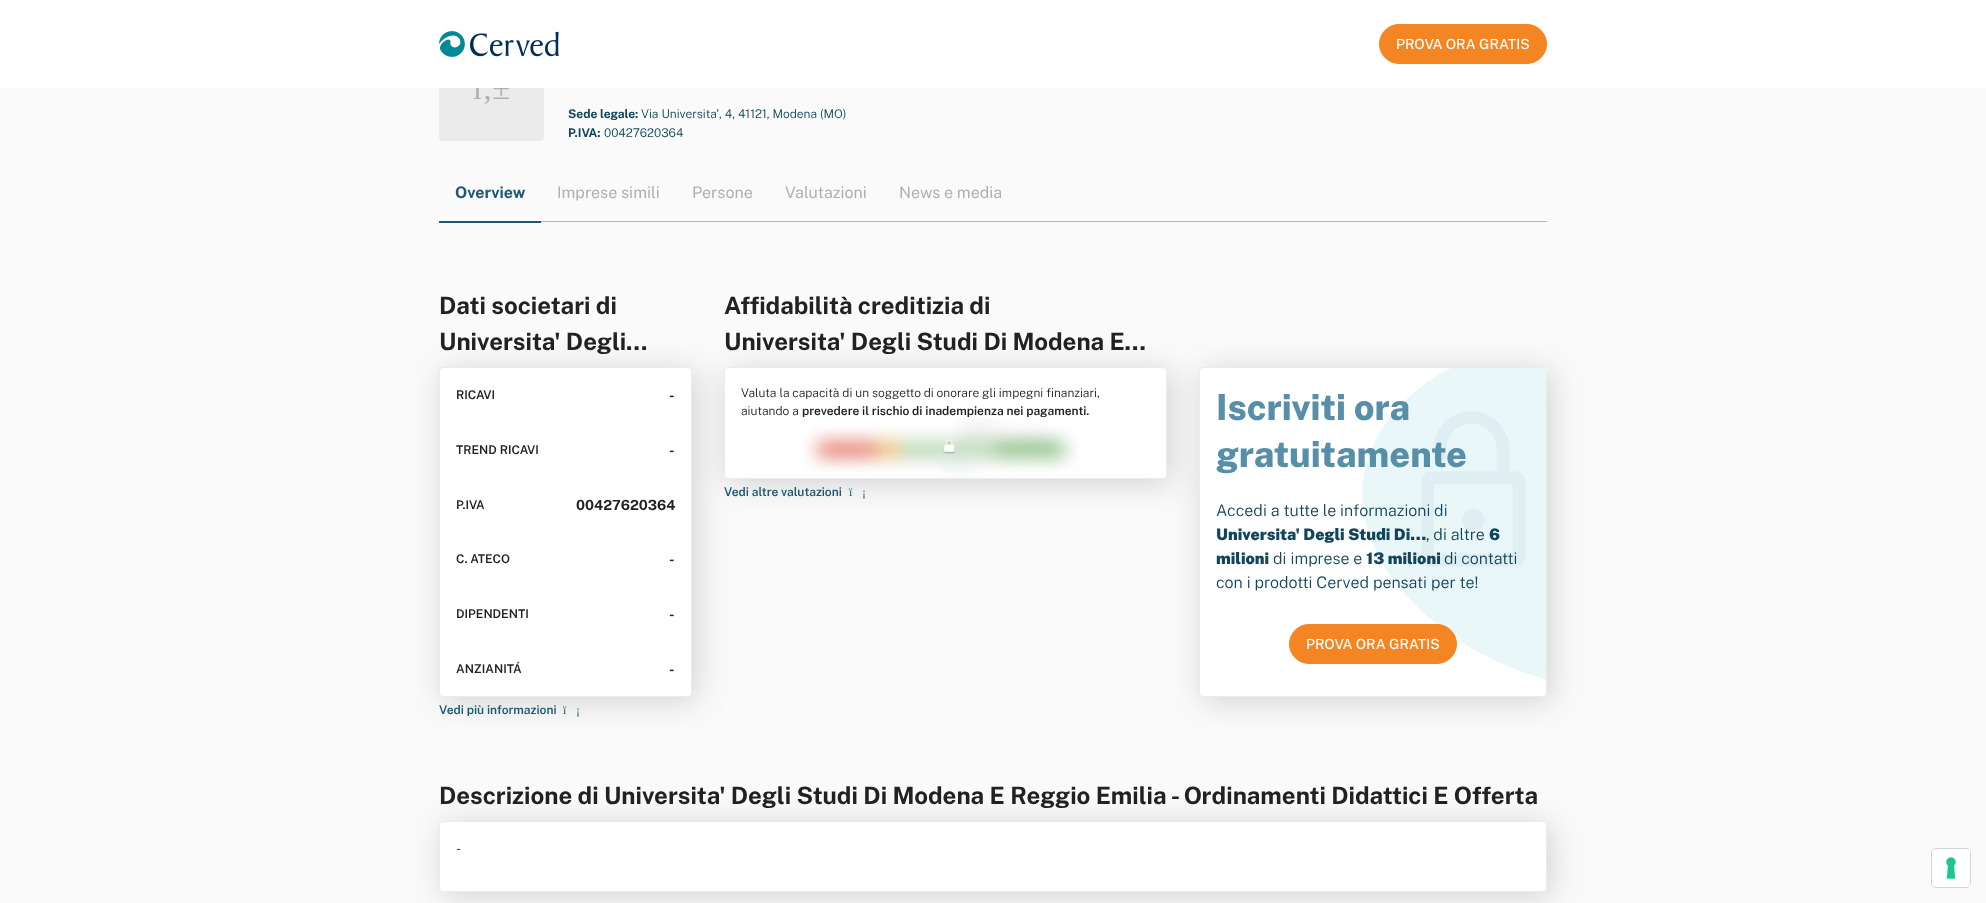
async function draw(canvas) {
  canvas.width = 1986
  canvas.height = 903
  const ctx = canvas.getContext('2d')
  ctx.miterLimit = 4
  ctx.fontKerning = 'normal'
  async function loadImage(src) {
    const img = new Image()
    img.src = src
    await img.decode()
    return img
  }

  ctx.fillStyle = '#fafafa'
  ctx.fillRect(0, 0, 1986, 903)
  ctx.fillStyle = '#ebebeb'
  ctx.beginPath()
  ctx.roundRect(439, 36, 105, 105, 4)
  ctx.fill()
  ctx.font = '32px Liberation Serif'
  ctx.fillStyle = '#b0b0b0'
  ctx.fillText('ï‚±', 473, 99)
  ctx.fillStyle = '#fff'
  ctx.fillRect(0, 0, 1986, 88)
  ctx.drawImage(await loadImage('image0.png'), 439, 31, 120, 26)
  ctx.fillStyle = '#f38522'
  ctx.beginPath()
  ctx.roundRect(1379.5, 24.5, 167, 39, 19.5)
  ctx.fill()
  ctx.strokeStyle = '#f38522'
  ctx.stroke()
  ctx.font = '500 14px Public Sans'
  ctx.fillStyle = '#fff'
  ctx.fillText('PROVA ORA GRATIS', 1396, 49)
  ctx.font = 'bold 12px Public Sans'
  ctx.fillStyle = '#11455c'
  ctx.fillText('Sede legale:', 568, 118)
  ctx.font = '300 12px Public Sans'
  ctx.fillText('Via Universita\', 4, 41121, Modena (MO)', 641, 118)
  ctx.font = 'bold 12px Public Sans'
  ctx.fillText('P.IVA:', 568, 137)
  ctx.font = '300 12px Public Sans'
  ctx.fillText('00427620364', 604, 137)
  ctx.fillStyle = '#1f5871'
  ctx.fillRect(439, 221, 102, 2)
  ctx.font = 'bold 16px Public Sans'
  ctx.fillText('Overview', 455, 198)
  ctx.fillStyle = '#b0b0b0'
  ctx.fillRect(541, 221, 1006, 1)
  ctx.font = '16px Public Sans'
  ctx.fillText('Imprese simili', 557, 198)
  ctx.fillText('Persone', 692, 198)
  ctx.fillText('Valutazioni', 785, 198)
  ctx.fillText('News e media', 899, 198)
  ctx.font = 'bold 24px Public Sans'
  ctx.fillStyle = '#222'
  ctx.fillText('Dati societari di', 439, 314)
  ctx.fillText('Universita\' Degli…', 439, 350)
  ctx.fillStyle = '#00000029'
  ctx.filter = 'blur(16px)'
  ctx.beginPath()
  ctx.roundRect(443, 371, 253, 330, 4)
  ctx.fill()
  ctx.filter = 'none'
  ctx.fillStyle = '#fff'
  ctx.beginPath()
  ctx.roundRect(439.5, 367.5, 252, 329, 3.5)
  ctx.fill()
  ctx.strokeStyle = '#ebebeb'
  ctx.stroke()
  ctx.font = '600 12px Public Sans'
  ctx.fillStyle = '#222'
  ctx.fillText('RICAVI', 456, 399)
  ctx.font = 'bold 14px Public Sans'
  ctx.fillText('-', 669, 400)
  ctx.font = '600 12px Public Sans'
  ctx.fillText('TREND RICAVI', 456, 454)
  ctx.font = 'bold 14px Public Sans'
  ctx.fillText('-', 669, 455)
  ctx.font = '600 12px Public Sans'
  ctx.fillText('P.IVA', 456, 509)
  ctx.font = 'bold 14px Public Sans'
  ctx.fillText('00427620364', 576, 510)
  ctx.font = '600 12px Public Sans'
  ctx.fillText('C. ATECO', 456, 563)
  ctx.font = 'bold 14px Public Sans'
  ctx.fillText('-', 669, 564)
  ctx.font = '600 12px Public Sans'
  ctx.fillText('DIPENDENTI', 456, 618)
  ctx.font = 'bold 14px Public Sans'
  ctx.fillText('-', 669, 619)
  ctx.font = '600 12px Public Sans'
  ctx.fillText('ANZIANITÁ', 456, 673)
  ctx.font = 'bold 14px Public Sans'
  ctx.fillText('-', 669, 674)
  ctx.font = '600 12px Public Sans'
  ctx.fillStyle = '#1f5871'
  ctx.fillText('Vedi più informazioni', 439, 714)
  ctx.font = '12px Liberation Serif'
  ctx.fillText('ï', 563, 714)
  ctx.fillText('¡', 576, 714)
  ctx.font = 'bold 24px Public Sans'
  ctx.fillStyle = '#222'
  ctx.fillText('Affidabilità creditizia di', 724, 314)
  ctx.fillText('Universita\' Degli Studi Di Modena E…', 724, 350)
  ctx.fillStyle = '#00000029'
  ctx.filter = 'blur(16px)'
  ctx.beginPath()
  ctx.roundRect(728, 371, 443, 112, 4)
  ctx.fill()
  ctx.filter = 'none'
  ctx.fillStyle = '#fff'
  ctx.beginPath()
  ctx.roundRect(724.5, 367.5, 442, 111, 3.5)
  ctx.fill()
  ctx.stroke()
  ctx.font = '300 12px Public Sans'
  ctx.fillStyle = '#222'
  ctx.fillText('Valuta la capacità di un soggetto di onorare gli impegni finanziari,', 741, 397)
  ctx.fillText('aiutando a', 741, 415)
  ctx.font = '600 12px Public Sans'
  ctx.fillText('prevedere il rischio di inadempienza nei pagamenti.', 802, 415)
  ctx.drawImage(await loadImage('image1.png'), 803, 418, 276, 60)
  ctx.fillStyle = '#1f5871'
  ctx.fillText('Vedi altre valutazioni', 724, 496)
  ctx.font = '12px Liberation Serif'
  ctx.fillText('ï', 849, 496)
  ctx.fillText('¡', 862, 496)
  ctx.fillStyle = '#00000029'
  ctx.filter = 'blur(16px)'
  ctx.beginPath()
  ctx.roundRect(1203, 371, 348, 330, 4)
  ctx.fill()
  ctx.filter = 'none'
  ctx.fillStyle = '#fff'
  ctx.beginPath()
  ctx.roundRect(1199, 367, 348, 330, 4)
  ctx.fill()
  ctx.drawImage(await loadImage('image2.png'), 1362, 368, 184, 312)
  ctx.beginPath()
  ctx.roundRect(1199.5, 367.5, 347, 329, 3.5)
  ctx.stroke()
  ctx.font = '800 36px Public Sans'
  ctx.fillStyle = '#578ea8'
  ctx.fillText('Iscriviti ora', 1216, 420)
  ctx.fillText('gratuitamente', 1216, 467)
  ctx.font = '300 16px Public Sans'
  ctx.fillStyle = '#11455c'
  ctx.fillText('Accedi a tutte le informazioni di', 1216, 516)
  ctx.font = '900 16px Public Sans'
  ctx.fillText('Universita\' Degli Studi Di…', 1216, 540)
  ctx.font = '300 16px Public Sans'
  ctx.fillText(', di altre', 1426, 540)
  ctx.font = '900 16px Public Sans'
  ctx.fillText('6', 1489, 540)
  ctx.fillText('milioni', 1216, 564)
  ctx.font = '300 16px Public Sans'
  ctx.fillText('di imprese e', 1273, 564)
  ctx.font = '900 16px Public Sans'
  ctx.fillText('13 milioni', 1366, 564)
  ctx.font = '300 16px Public Sans'
  ctx.fillText('di contatti', 1444, 564)
  ctx.fillText('con i prodotti Cerved pensati per te!', 1216, 588)
  ctx.fillStyle = '#f38522'
  ctx.beginPath()
  ctx.roundRect(1289.5, 624.5, 167, 39, 19.5)
  ctx.fill()
  ctx.strokeStyle = '#f38522'
  ctx.stroke()
  ctx.font = '500 14px Public Sans'
  ctx.fillStyle = '#fff'
  ctx.fillText('PROVA ORA GRATIS', 1306, 649)
  ctx.font = 'bold 24px Public Sans'
  ctx.fillStyle = '#222'
  ctx.fillText('Descrizione di Universita\' Degli Studi Di Modena E Reggio Emilia - Ordinamenti Didattici E Offerta', 439, 804)
  ctx.fillStyle = '#00000029'
  ctx.filter = 'blur(16px)'
  ctx.beginPath()
  ctx.roundRect(443, 825, 1108, 71, 4)
  ctx.fill()
  ctx.filter = 'none'
  ctx.fillStyle = '#fff'
  ctx.beginPath()
  ctx.roundRect(439.5, 821.5, 1107, 70, 3.5)
  ctx.fill()
  ctx.strokeStyle = '#ebebeb'
  ctx.stroke()
  ctx.font = '300 14px Public Sans'
  ctx.fillStyle = '#222'
  ctx.fillText('-', 456, 853)
  ctx.beginPath()
  ctx.roundRect(1931.5, 848.5, 39, 39, 4.5)
  ctx.strokeStyle = '#d5d5d5'
  ctx.stroke()
  ctx.fillStyle = '#fff'
  ctx.beginPath()
  ctx.roundRect(1932, 849, 38, 38, 4)
  ctx.fill()
  ctx.drawImage(await loadImage('image3.png'), 1946, 857, 10, 22)
}

draw(document.querySelector('canvas'))
